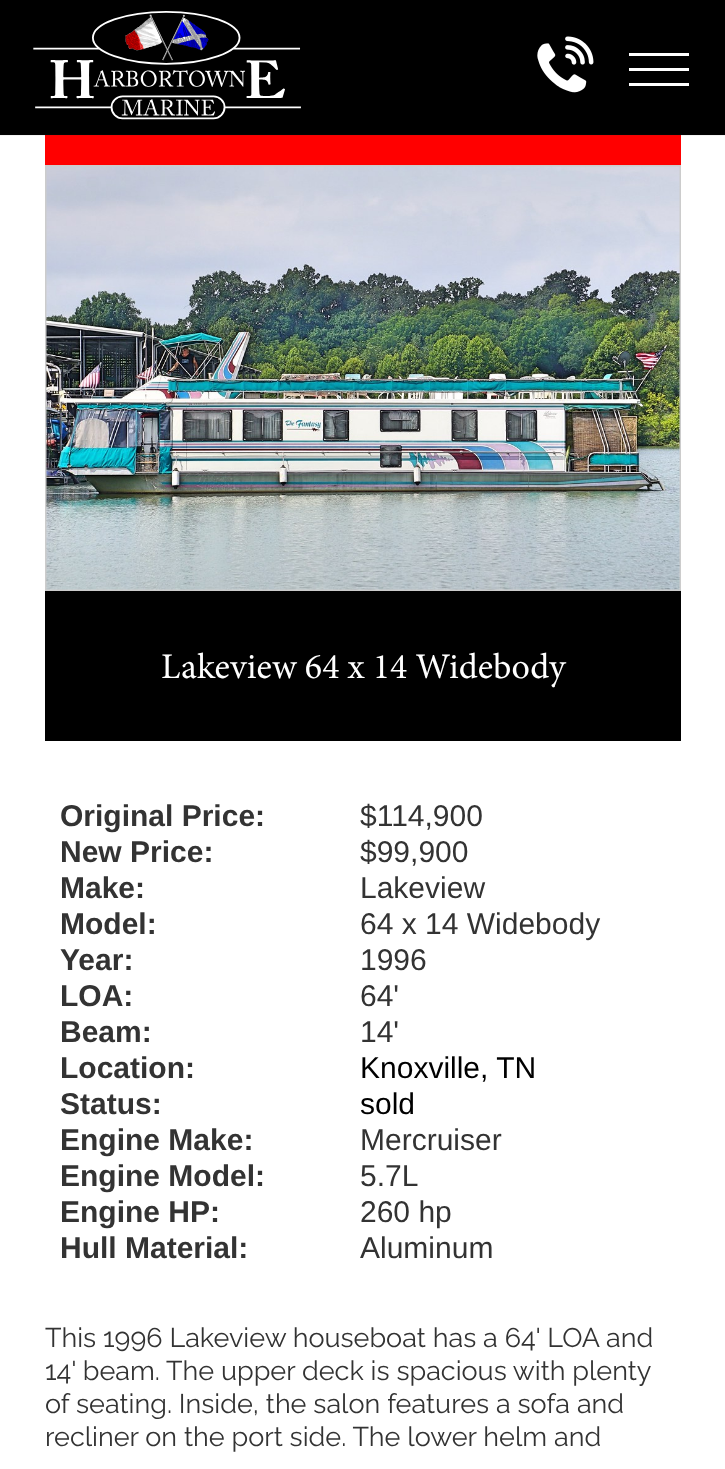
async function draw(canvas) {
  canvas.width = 725
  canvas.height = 1469
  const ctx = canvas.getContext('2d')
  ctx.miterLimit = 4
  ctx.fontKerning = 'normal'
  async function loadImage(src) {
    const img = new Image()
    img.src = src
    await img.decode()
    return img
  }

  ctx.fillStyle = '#fff'
  ctx.fillRect(0, 0, 725, 1469)
  ctx.fillStyle = '#000'
  ctx.fillRect(0, 0, 725, 135)
  ctx.fillStyle = '#f00'
  ctx.fillRect(45, 135, 636, 30)
  ctx.fillStyle = '#3838380f'
  ctx.fillRect(0, 134, 725, 2)
  ctx.drawImage(await loadImage('image0.png'), 33, 11, 268, 109)
  ctx.drawImage(await loadImage('image1.png'), 537, 36, 57, 57)
  ctx.fillStyle = '#fff'
  ctx.fillRect(629, 53, 60, 3)
  ctx.fillRect(629, 68, 60, 3)
  ctx.fillRect(629, 83, 60, 3)
  ctx.strokeStyle = '#ccc'
  ctx.lineWidth = 2
  ctx.strokeRect(46, 166, 634, 424)
  ctx.drawImage(await loadImage('image2.png'), 46, 166, 634, 424)
  ctx.fillStyle = '#000'
  ctx.fillRect(45, 591, 636, 150)
  ctx.font = '36px Minion'
  ctx.fillStyle = '#fff'
  ctx.fillText('Lakeview 64 x 14 Widebody', 161, 678)
  ctx.font = 'bold 30px Liberation Sans'
  ctx.fillStyle = '#333'
  ctx.fillText('Original Price:', 60, 826)
  ctx.font = '30px Liberation Sans'
  ctx.fillText('$114,900', 360, 826)
  ctx.font = 'bold 30px Liberation Sans'
  ctx.fillText('New Price:', 60, 862)
  ctx.font = '30px Liberation Sans'
  ctx.fillText('$99,900', 360, 862)
  ctx.font = 'bold 30px Liberation Sans'
  ctx.fillText('Make:', 60, 898)
  ctx.font = '30px Liberation Sans'
  ctx.fillText('Lakeview', 360, 898)
  ctx.font = 'bold 30px Liberation Sans'
  ctx.fillText('Model:', 60, 934)
  ctx.font = '30px Liberation Sans'
  ctx.fillText('64 x 14 Widebody', 360, 934)
  ctx.font = 'bold 30px Liberation Sans'
  ctx.fillText('Year:', 60, 970)
  ctx.font = '30px Liberation Sans'
  ctx.fillText('1996', 360, 970)
  ctx.font = 'bold 30px Liberation Sans'
  ctx.fillText('LOA:', 60, 1006)
  ctx.font = '30px Liberation Sans'
  ctx.fillText('64\'', 360, 1006)
  ctx.font = 'bold 30px Liberation Sans'
  ctx.fillText('Beam:', 60, 1042)
  ctx.font = '30px Liberation Sans'
  ctx.fillText('14\'', 360, 1042)
  ctx.font = 'bold 30px Liberation Sans'
  ctx.fillText('Location:', 60, 1078)
  ctx.font = '30px Liberation Sans'
  ctx.fillStyle = '#000'
  ctx.fillText('Knoxville, TN', 360, 1078)
  ctx.font = 'bold 30px Liberation Sans'
  ctx.fillStyle = '#333'
  ctx.fillText('Status:', 60, 1114)
  ctx.font = '30px Liberation Sans'
  ctx.fillStyle = '#000'
  ctx.fillText('sold', 360, 1114)
  ctx.font = 'bold 30px Liberation Sans'
  ctx.fillStyle = '#333'
  ctx.fillText('Engine Make:', 60, 1150)
  ctx.font = '30px Liberation Sans'
  ctx.fillText('Mercruiser', 360, 1150)
  ctx.font = 'bold 30px Liberation Sans'
  ctx.fillText('Engine Model:', 60, 1186)
  ctx.font = '30px Liberation Sans'
  ctx.fillText('5.7L', 360, 1186)
  ctx.font = 'bold 30px Liberation Sans'
  ctx.fillText('Engine HP:', 60, 1222)
  ctx.font = '30px Liberation Sans'
  ctx.fillText('260 hp', 360, 1222)
  ctx.font = 'bold 30px Liberation Sans'
  ctx.fillText('Hull Material:', 60, 1258)
  ctx.font = '30px Liberation Sans'
  ctx.fillText('Aluminum', 360, 1258)
  ctx.font = '27px Raleway'
  ctx.fillText('This 1996 Lakeview houseboat has a 64\' LOA and', 45, 1347)
  ctx.fillText('14\' beam. The upper deck is spacious with plenty', 45, 1380)
  ctx.fillText('of seating. Inside, the salon features a sofa and', 45, 1413)
  ctx.fillText('recliner on the port side. The lower helm and', 45, 1446)
}

draw(document.querySelector('canvas'))
